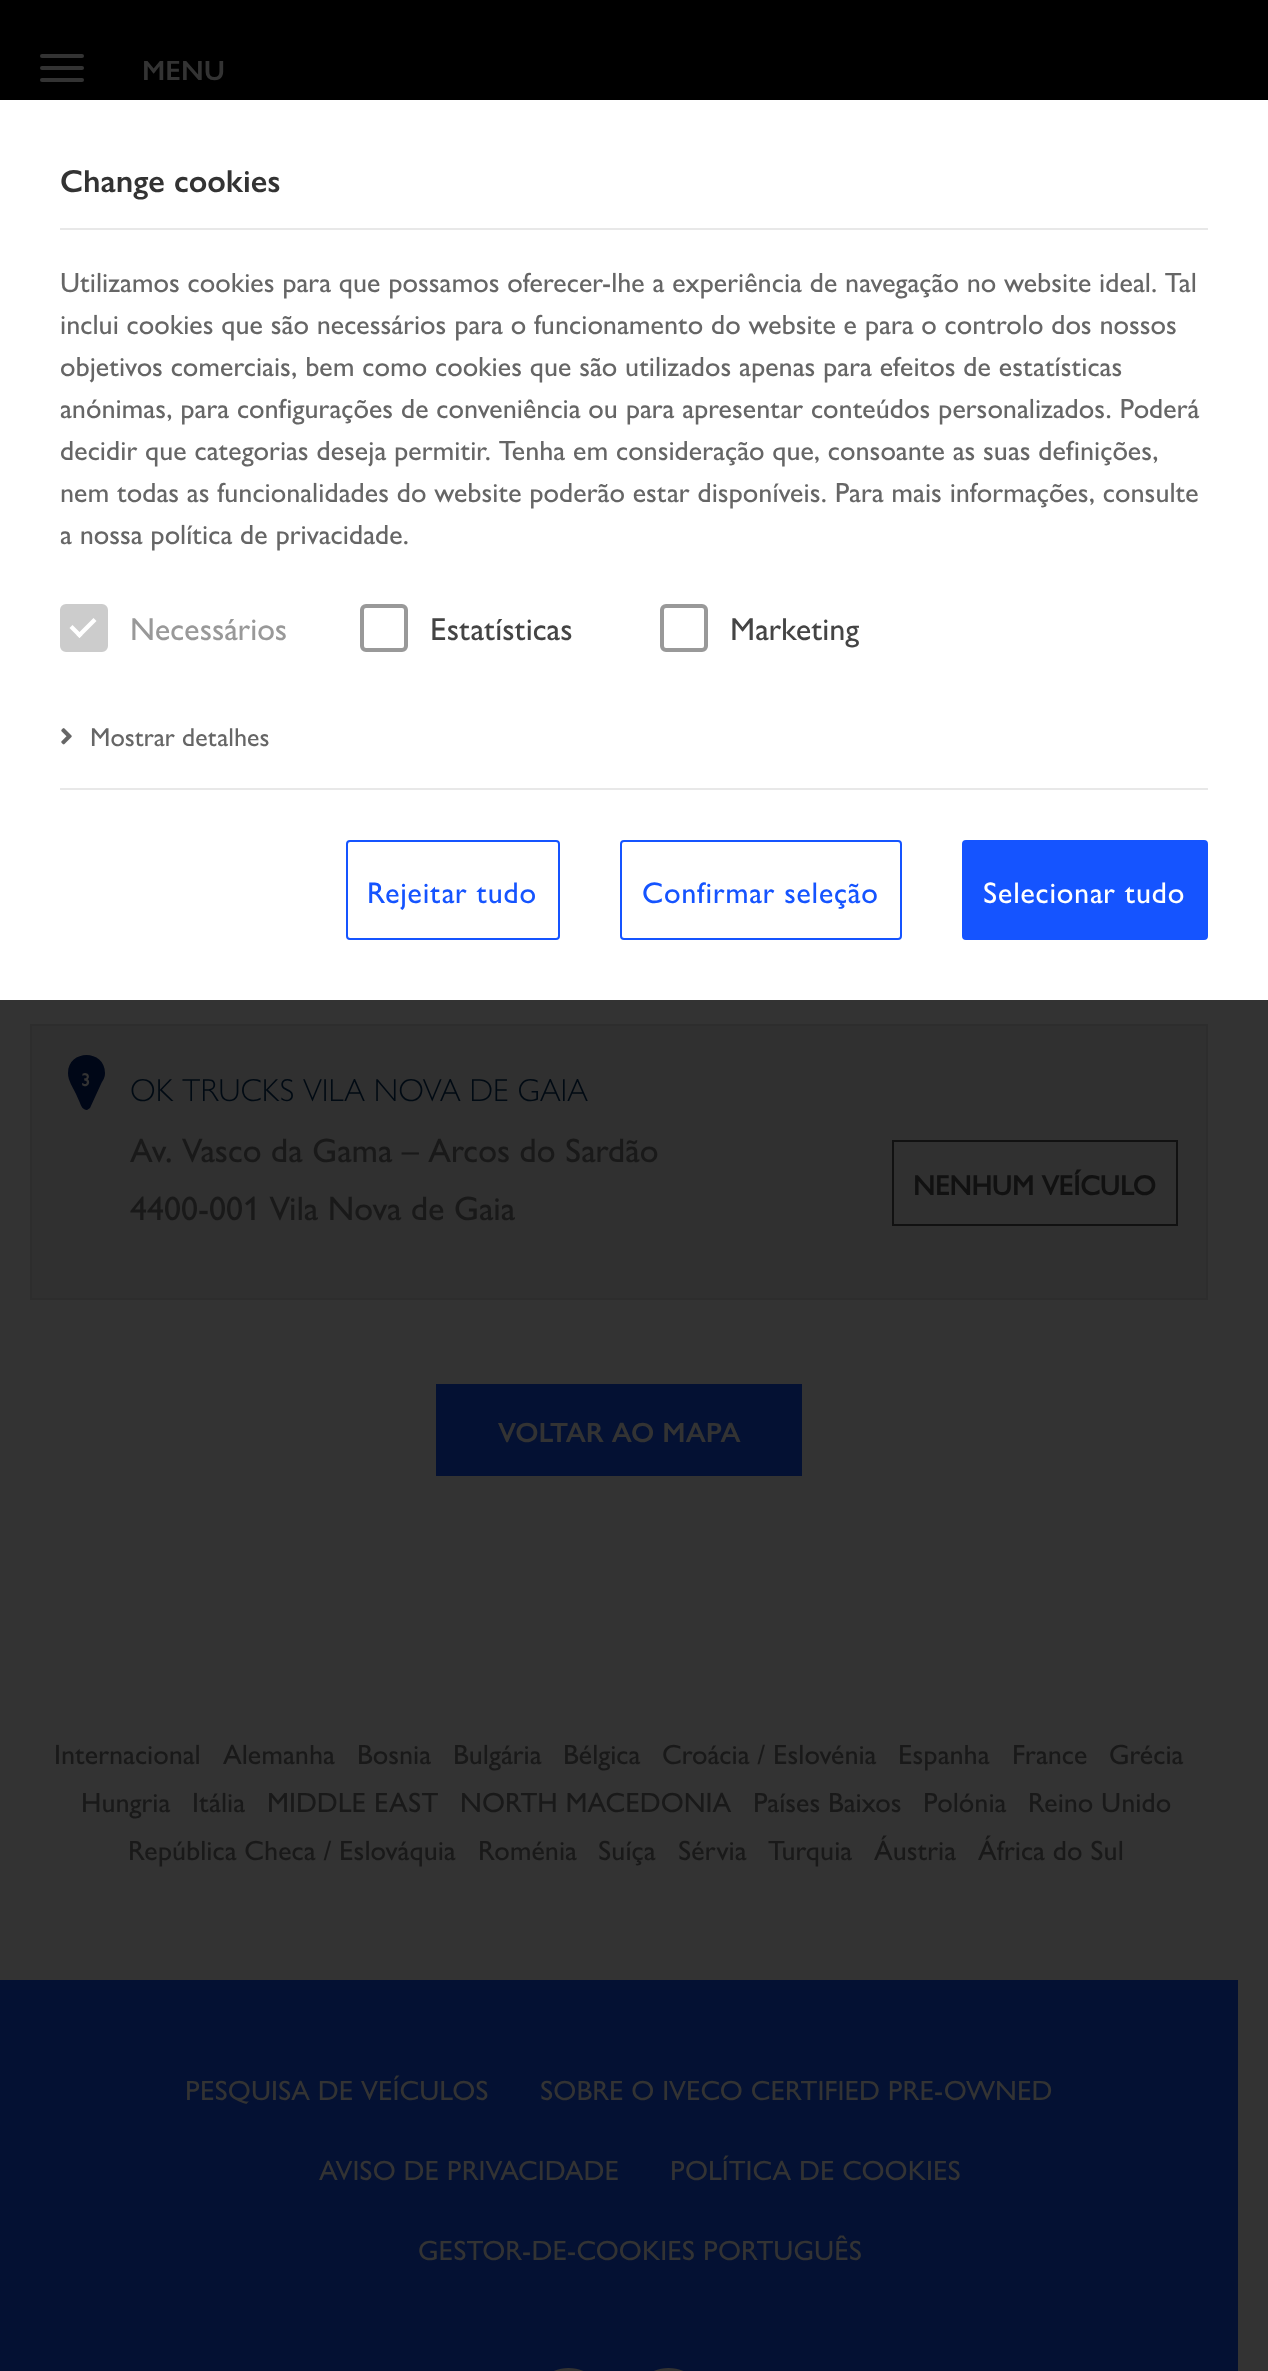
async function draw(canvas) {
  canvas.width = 1268
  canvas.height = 2371
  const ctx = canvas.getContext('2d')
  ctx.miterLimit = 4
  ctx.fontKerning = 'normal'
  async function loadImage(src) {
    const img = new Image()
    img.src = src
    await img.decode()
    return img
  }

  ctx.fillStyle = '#333'
  ctx.fillRect(0, 0, 1268, 2371)
  ctx.fillStyle = '#000'
  ctx.fillRect(0, 0, 1268, 100)
  ctx.fillStyle = '#333'
  ctx.beginPath()
  ctx.roundRect(40, 54, 44, 4, 2)
  ctx.fill()
  ctx.beginPath()
  ctx.roundRect(40, 66, 44, 4, 2)
  ctx.fill()
  ctx.beginPath()
  ctx.roundRect(40, 78, 44, 4, 2)
  ctx.fill()
  ctx.font = '600 28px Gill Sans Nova'
  ctx.fillText('MENU', 142, 80)
  ctx.fillStyle = '#fff'
  ctx.fillRect(0, 100, 1268, 900)
  ctx.fillStyle = '#e8e8e8'
  ctx.fillRect(60, 228, 1148, 2)
  ctx.font = '600 32px Gill Sans Nova'
  ctx.fillStyle = '#333'
  ctx.fillText('Change cookies', 60, 192)
  ctx.font = '500 28px Gill Sans Nova'
  ctx.fillStyle = '#666'
  ctx.fillText('Utilizamos cookies para que possamos oferecer-lhe a experiência de navegação no website ideal. Tal', 60, 292)
  ctx.fillText('inclui cookies que são necessários para o funcionamento do website e para o controlo dos nossos', 60, 334)
  ctx.fillText('objetivos comerciais, bem como cookies que são utilizados apenas para efeitos de estatísticas', 60, 376)
  ctx.fillText('anónimas, para configurações de conveniência ou para apresentar conteúdos personalizados. Poderá', 60, 418)
  ctx.fillText('decidir que categorias deseja permitir. Tenha em consideração que, consoante as suas definições,', 60, 460)
  ctx.fillText('nem todas as funcionalidades do website poderão estar disponíveis. Para mais informações, consulte', 60, 502)
  ctx.fillText('a nossa política de privacidade.', 60, 544)
  ctx.fillStyle = '#ccc'
  ctx.beginPath()
  ctx.roundRect(62, 606, 44, 44, 4)
  ctx.fill()
  ctx.strokeStyle = '#ccc'
  ctx.lineWidth = 4
  ctx.stroke()
  ctx.fillStyle = '#fff'
  ctx.beginPath()
  ctx.moveTo(93.5, 618)
  ctx.lineTo(96.5, 621)
  ctx.lineTo(79.5, 638)
  ctx.lineTo(76.5, 635)
  ctx.closePath()
  ctx.fill()
  ctx.beginPath()
  ctx.moveTo(72.5, 625)
  ctx.lineTo(82.5, 635)
  ctx.lineTo(79.5, 638)
  ctx.lineTo(69.5, 628)
  ctx.closePath()
  ctx.fill()
  ctx.font = '500 32px Gill Sans Nova'
  ctx.fillStyle = '#999'
  ctx.fillText('Necessários', 130, 640)
  ctx.beginPath()
  ctx.roundRect(362, 606, 44, 44, 4)
  ctx.strokeStyle = '#999'
  ctx.stroke()
  ctx.fillStyle = '#444'
  ctx.fillText('Estatísticas', 430, 640)
  ctx.beginPath()
  ctx.roundRect(662, 606, 44, 44, 4)
  ctx.stroke()
  ctx.fillText('Marketing', 730, 640)
  ctx.drawImage(await loadImage('image0.png'), 61, 728, 11, 17)
  ctx.font = '500 26px Gill Sans Nova'
  ctx.fillStyle = '#666'
  ctx.fillText('Mostrar detalhes', 90, 746)
  ctx.fillStyle = '#e8e8e8'
  ctx.fillRect(60, 788, 1148, 2)
  ctx.beginPath()
  ctx.roundRect(347, 841, 212, 98, 3)
  ctx.strokeStyle = '#1554ff'
  ctx.lineWidth = 2
  ctx.stroke()
  ctx.letterSpacing = '0.75px'
  ctx.font = '500 30px Gill Sans Nova'
  ctx.fillStyle = '#1554ff'
  ctx.fillText('Rejeitar tudo', 367, 903)
  ctx.beginPath()
  ctx.roundRect(621, 841, 280, 98, 3)
  ctx.stroke()
  ctx.fillText('Confirmar seleção', 642, 903)
  ctx.beginPath()
  ctx.roundRect(963, 841, 244, 98, 3)
  ctx.fill()
  ctx.stroke()
  ctx.fillStyle = '#fff'
  ctx.fillText('Selecionar tudo', 983, 903)
  ctx.fillStyle = '#303030'
  ctx.beginPath()
  ctx.rect(31, 1025, 1176, 274)
  ctx.fill()
  ctx.strokeStyle = '#2d2d2d'
  ctx.stroke()
  ctx.fillStyle = '#000717'
  ctx.beginPath()
  ctx.moveTo(105, 1073)
  ctx.bezierCurveTo(105, 1078, 103, 1080, 101, 1084)
  ctx.lineTo(90, 1108)
  ctx.lineTo(87, 1110)
  ctx.bezierCurveTo(83, 1110, 81, 1106, 80, 1103)
  ctx.lineTo(76, 1094)
  ctx.bezierCurveTo(73, 1087, 68, 1081, 68, 1073)
  ctx.bezierCurveTo(68, 1049, 105, 1049, 105, 1073)
  ctx.closePath()
  ctx.fill()
  ctx.letterSpacing = '0px'
  ctx.font = 'bold 18px Gill Sans Nova'
  ctx.fillStyle = '#333'
  ctx.fillText('3', 81, 1086)
  ctx.font = '300 32px Gill Sans Nova'
  ctx.fillStyle = '#000a13'
  ctx.fillText('OK TRUCKS VILA NOVA DE GAIA', 130, 1101)
  ctx.font = '500 34px Gill Sans Nova'
  ctx.fillStyle = '#191919'
  ctx.fillText('Av. Vasco da Gama – Arcos do Sardão', 130, 1162)
  ctx.fillText('4400-001 Vila Nova de Gaia', 130, 1220)
  ctx.strokeStyle = '#111'
  ctx.strokeRect(893, 1141, 284, 84)
  ctx.font = 'bold 28px Gill Sans Nova'
  ctx.fillStyle = '#111'
  ctx.fillText('NENHUM VEÍCULO', 913, 1195)
  ctx.fillStyle = '#041133'
  ctx.fillRect(436, 1384, 366, 92)
  ctx.font = '600 28px Gill Sans Nova'
  ctx.fillStyle = '#333'
  ctx.fillText('VOLTAR AO MAPA', 498, 1442)
  ctx.font = '500 28px Gill Sans Nova'
  ctx.fillStyle = '#191919'
  ctx.fillText('Internacional', 54, 1764)
  ctx.fillText('Alemanha', 223, 1764)
  ctx.fillText('Bosnia', 357, 1764)
  ctx.fillText('Bulgária', 453, 1764)
  ctx.fillText('Bélgica', 563, 1764)
  ctx.fillText('Croácia / Eslovénia', 662, 1764)
  ctx.fillText('Espanha', 898, 1764)
  ctx.fillText('France', 1012, 1764)
  ctx.fillText('Grécia', 1109, 1764)
  ctx.fillText('Hungria', 81, 1812)
  ctx.fillText('Itália', 192, 1812)
  ctx.fillText('MIDDLE EAST', 267, 1812)
  ctx.fillText('NORTH MACEDONIA', 460, 1812)
  ctx.fillText('Países Baixos', 753, 1812)
  ctx.fillText('Polónia', 923, 1812)
  ctx.fillText('Reino Unido', 1028, 1812)
  ctx.fillText('República Checa / Eslováquia', 128, 1860)
  ctx.fillText('Roménia', 478, 1860)
  ctx.fillText('Suíça', 598, 1860)
  ctx.fillText('Sérvia', 678, 1860)
  ctx.fillText('Turquia', 768, 1860)
  ctx.fillText('Áustria', 874, 1860)
  ctx.fillText('África do Sul', 978, 1860)
  ctx.fillStyle = '#041133'
  ctx.fillRect(0, 1980, 1238, 391)
  ctx.fillStyle = '#333'
  ctx.fillText('PESQUISA DE VEÍCULOS', 185, 2100)
  ctx.fillText('SOBRE O IVECO CERTIFIED PRE-OWNED', 540, 2100)
  ctx.fillText('AVISO DE PRIVACIDADE', 319, 2180)
  ctx.fillText('POLÍTICA DE COOKIES', 670, 2180)
  ctx.fillText('GESTOR-DE-COOKIES PORTUGUÊS', 418, 2260)
  ctx.beginPath()
  ctx.moveTo(608, 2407)
  ctx.bezierCurveTo(608, 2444, 561, 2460, 538, 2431)
  ctx.bezierCurveTo(533, 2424, 530, 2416, 530, 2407)
  ctx.bezierCurveTo(530, 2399, 533, 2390, 538, 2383)
  ctx.bezierCurveTo(561, 2354, 608, 2370, 608, 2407)
  ctx.closePath()
  ctx.fill()
  ctx.beginPath()
  ctx.moveTo(708, 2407)
  ctx.bezierCurveTo(708, 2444, 661, 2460, 638, 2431)
  ctx.bezierCurveTo(633, 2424, 630, 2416, 630, 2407)
  ctx.bezierCurveTo(630, 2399, 633, 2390, 638, 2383)
  ctx.bezierCurveTo(661, 2354, 708, 2370, 708, 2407)
  ctx.closePath()
  ctx.fill()
}

draw(document.querySelector('canvas'))
